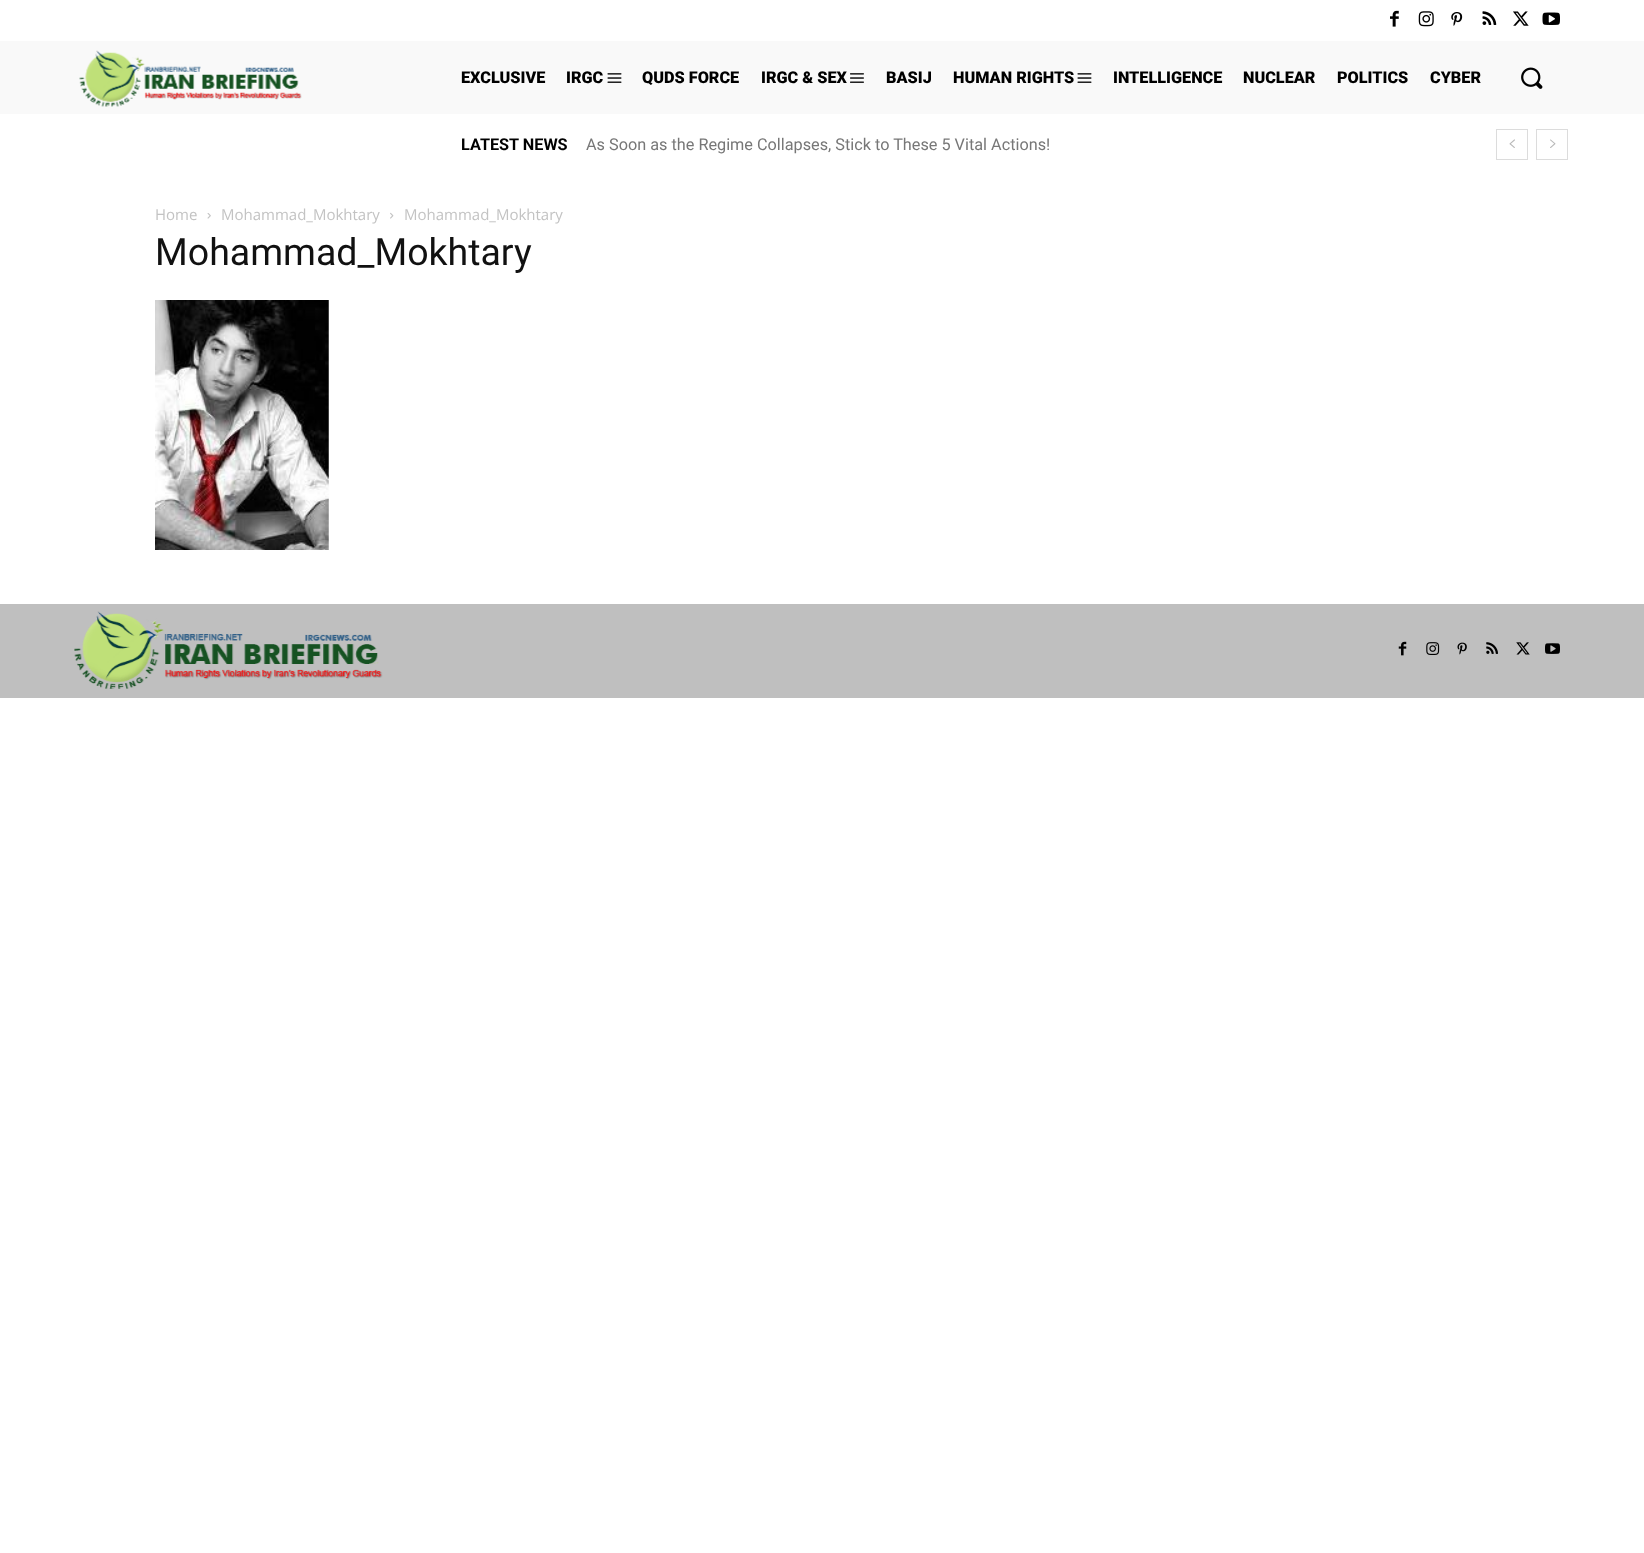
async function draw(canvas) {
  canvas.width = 1644
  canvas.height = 1553
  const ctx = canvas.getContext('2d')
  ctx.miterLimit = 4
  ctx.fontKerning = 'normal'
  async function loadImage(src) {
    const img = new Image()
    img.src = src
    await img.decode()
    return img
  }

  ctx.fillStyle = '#fff'
  ctx.fillRect(0, 0, 1644, 1553)
  ctx.drawImage(await loadImage('image0.png'), 1390, 10, 9, 17)
  ctx.drawImage(await loadImage('image1.png'), 1418, 11, 16, 16)
  ctx.drawImage(await loadImage('image2.png'), 1451, 12, 12, 14)
  ctx.drawImage(await loadImage('image3.png'), 1482, 11, 15, 14)
  ctx.drawImage(await loadImage('image4.png'), 1513, 11, 16, 15)
  ctx.drawImage(await loadImage('image5.png'), 1542, 12, 18, 13)
  ctx.fillStyle = '#f9f9f9'
  ctx.fillRect(0, 41, 1644, 73)
  ctx.drawImage(await loadImage('image6.png'), 79, 50, 223, 57)
  ctx.font = '900 16.25px Roboto'
  ctx.fillStyle = '#000'
  ctx.fillText('EXCLUSIVE', 461, 83)
  ctx.fillText('IRGC', 566, 83)
  ctx.drawImage(await loadImage('image7.png'), 607, 73, 15, 10)
  ctx.fillText('QUDS FORCE', 642, 83)
  ctx.fillText('IRGC & SEX', 761, 83)
  ctx.drawImage(await loadImage('image8.png'), 850, 73, 14, 10)
  ctx.fillText('BASIJ', 886, 83)
  ctx.fillText('HUMAN RIGHTS', 953, 83)
  ctx.drawImage(await loadImage('image7.png'), 1077, 73, 15, 10)
  ctx.fillText('INTELLIGENCE', 1113, 83)
  ctx.fillText('NUCLEAR', 1243, 83)
  ctx.fillText('POLITICS', 1337, 83)
  ctx.fillText('CYBER', 1430, 83)
  ctx.drawImage(await loadImage('image9.png'), 1521, 67, 22, 22)
  ctx.font = 'bold 16.25px Roboto'
  ctx.fillText('LATEST NEWS', 461, 150)
  ctx.font = '16.25px Roboto'
  ctx.fillStyle = '#777'
  ctx.fillText('As Soon as the Regime Collapses, Stick to These 5 Vital Actions!', 586, 150)
  ctx.strokeStyle = '#dcdcdc'
  ctx.strokeRect(1496.5, 129.5, 31, 30)
  ctx.drawImage(await loadImage('image10.png'), 1509, 139, 6, 9)
  ctx.strokeRect(1536.5, 129.5, 31, 30)
  ctx.drawImage(await loadImage('image11.png'), 1550, 139, 6, 9)
  ctx.font = '15px Open Sans'
  ctx.fillStyle = '#c3c3c3'
  ctx.fillText('Home', 155, 220)
  ctx.drawImage(await loadImage('image12.png'), 207, 213, 4, 6)
  ctx.fillText('Mohammad_Mokhtary', 221, 220)
  ctx.drawImage(await loadImage('image13.png'), 390, 212, 4, 7)
  ctx.fillText('Mohammad_Mokhtary', 404, 220)
  ctx.font = '37.5px Roboto'
  ctx.fillStyle = '#111'
  ctx.fillText('Mohammad_Mokhtary', 155, 265)
  ctx.drawImage(await loadImage('image14.png'), 155, 300, 174, 250)
  ctx.fillStyle = '#bfbfbf'
  ctx.fillRect(0, 604, 1644, 94)
  ctx.drawImage(await loadImage('image15.png'), 74, 611, 309, 78)
  ctx.drawImage(await loadImage('image16.png'), 1398, 641, 9, 15)
  ctx.drawImage(await loadImage('image17.png'), 1426, 642, 14, 13)
  ctx.drawImage(await loadImage('image18.png'), 1457, 642, 10, 13)
  ctx.drawImage(await loadImage('image19.png'), 1486, 642, 12, 12)
  ctx.drawImage(await loadImage('image20.png'), 1516, 642, 14, 13)
  ctx.drawImage(await loadImage('image21.png'), 1545, 643, 15, 11)
}

draw(document.querySelector('canvas'))
